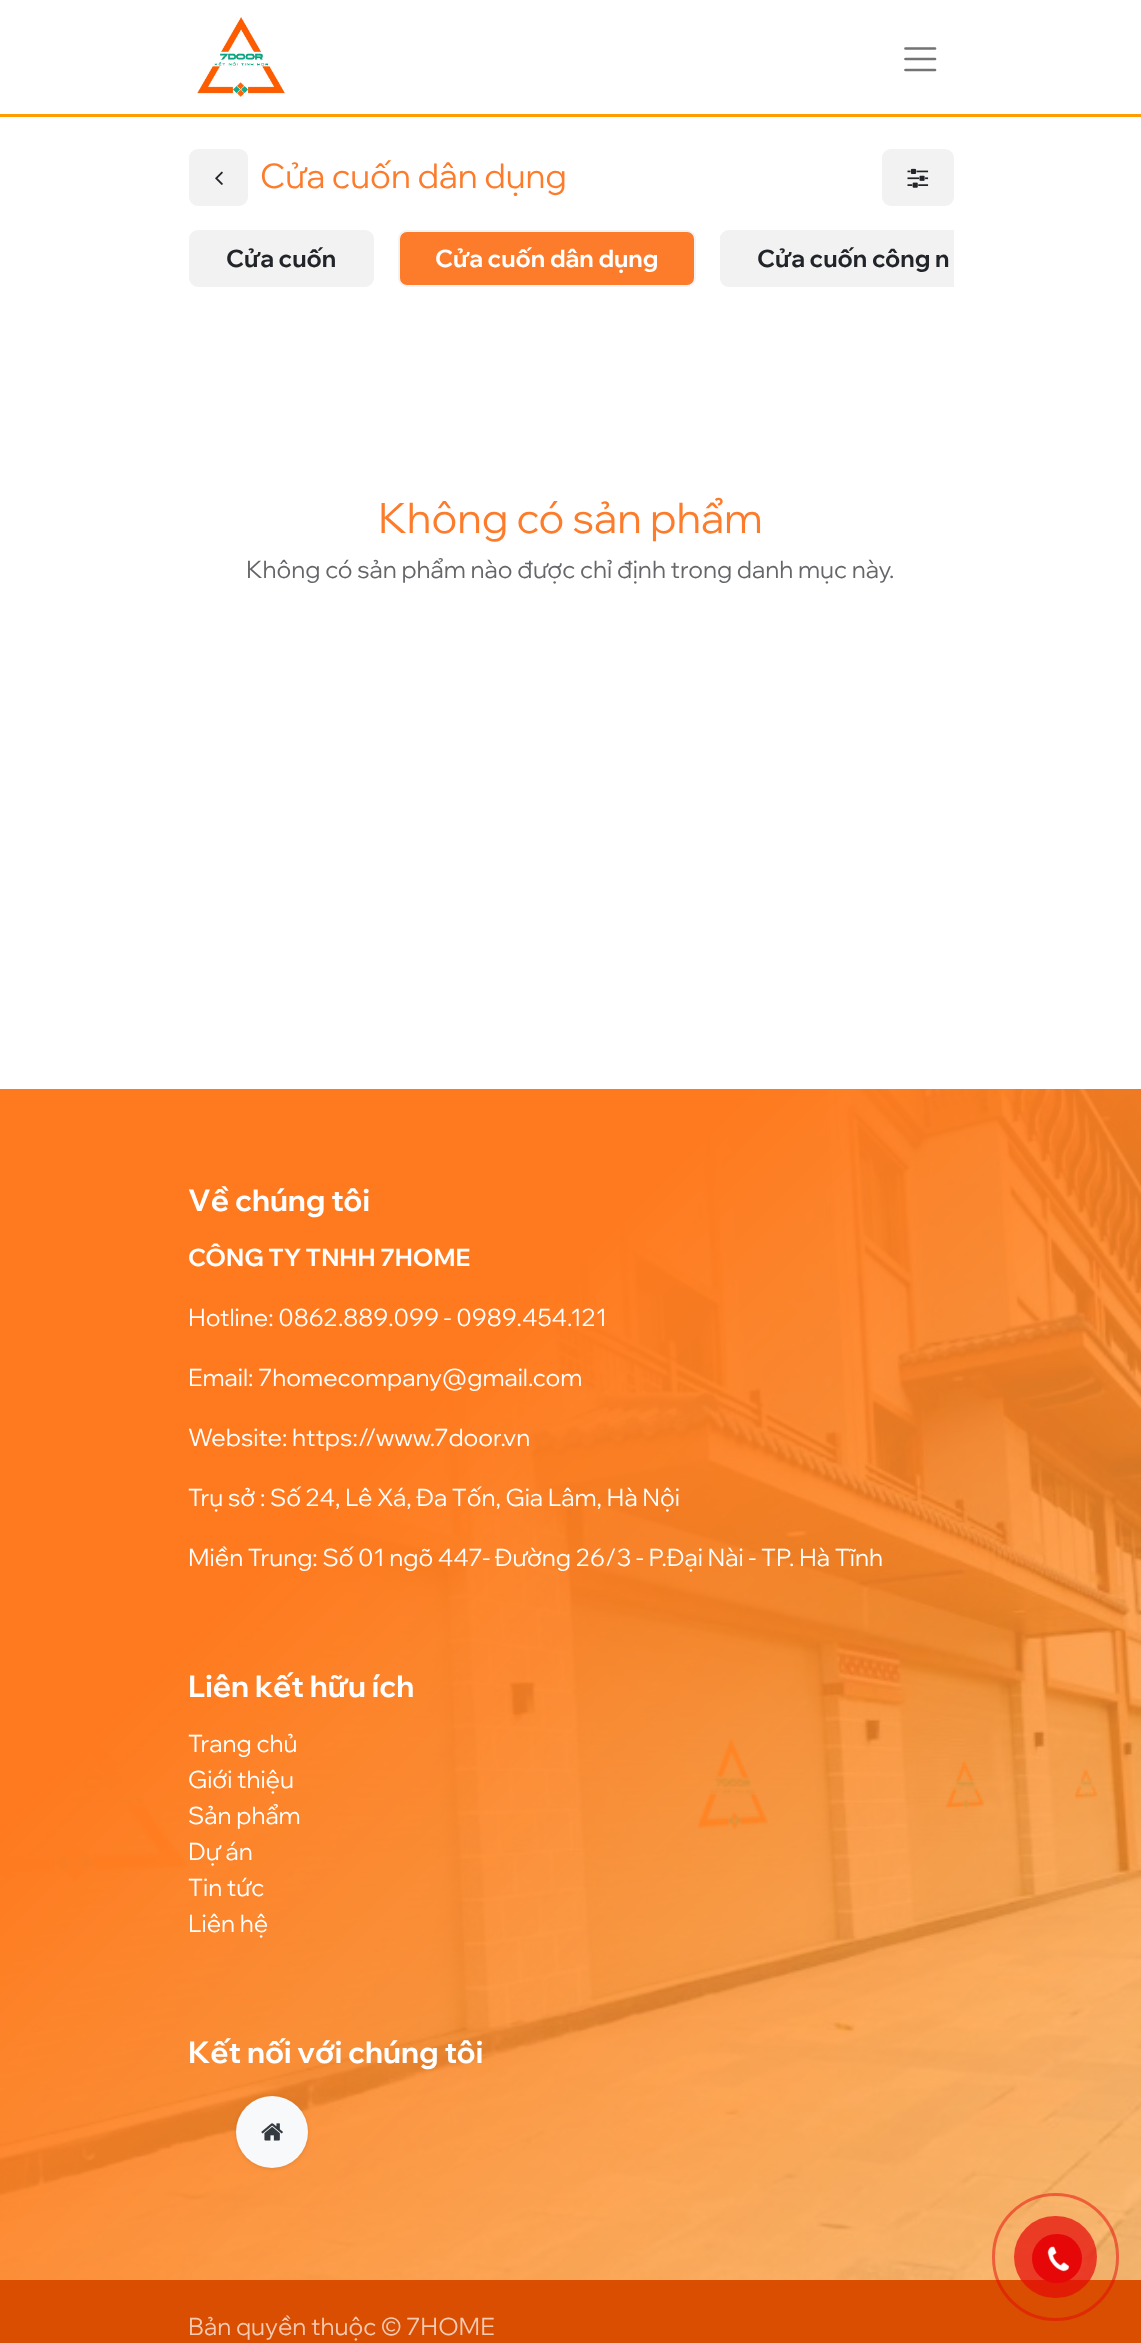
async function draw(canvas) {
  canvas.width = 1141
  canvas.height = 2343
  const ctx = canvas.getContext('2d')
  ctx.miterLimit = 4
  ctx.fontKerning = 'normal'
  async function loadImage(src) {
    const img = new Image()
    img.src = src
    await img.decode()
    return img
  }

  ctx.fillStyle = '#fff'
  ctx.fillRect(0, 0, 1141, 2343)
  ctx.fillStyle = '#ff9c00'
  ctx.beginPath()
  ctx.moveTo(0, 114)
  ctx.lineTo(0, 117)
  ctx.lineTo(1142, 117)
  ctx.lineTo(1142, 3)
  ctx.lineTo(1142, 114)
  ctx.closePath()
  ctx.fill()
  ctx.drawImage(await loadImage('image0.png'), 197, 17, 88, 80)
  ctx.beginPath()
  ctx.moveTo(905.5, 48.5)
  ctx.lineTo(935, 48.5)
  ctx.moveTo(905.5, 59)
  ctx.lineTo(935, 59)
  ctx.moveTo(905.5, 70)
  ctx.lineTo(935, 70)
  ctx.strokeStyle = '#737373'
  ctx.lineWidth = 2.7
  ctx.lineCap = 'round'
  ctx.stroke()
  ctx.fillStyle = '#f3f2f2'
  ctx.beginPath()
  ctx.roundRect(190, 150, 57, 55, 8)
  ctx.fill()
  ctx.strokeStyle = '#f3f2f2'
  ctx.lineWidth = 2
  ctx.stroke()
  ctx.drawImage(await loadImage('image1.png'), 215, 171, 8, 14)
  ctx.font = '34px Wix Madefor Display'
  ctx.fillStyle = '#fd7c2b'
  ctx.fillText('Cửa cuốn dân dụng', 260, 188)
  ctx.fillStyle = '#f3f2f2'
  ctx.beginPath()
  ctx.roundRect(883, 150, 70, 55, 8)
  ctx.fill()
  ctx.stroke()
  ctx.drawImage(await loadImage('image2.png'), 907, 168, 22, 20)
  ctx.beginPath()
  ctx.roundRect(190, 231, 183, 55, 8)
  ctx.fill()
  ctx.stroke()
  ctx.font = 'bold 24px Wix Madefor Display'
  ctx.fillStyle = '#212529'
  ctx.fillText('Cửa cuốn', 226, 267)
  ctx.fillStyle = '#fd7c2b'
  ctx.beginPath()
  ctx.roundRect(399, 231, 296, 55, 8)
  ctx.fill()
  ctx.strokeStyle = '#f4f3f3'
  ctx.stroke()
  ctx.fillStyle = '#fff'
  ctx.fillText('Cửa cuốn dân dụng', 435, 267)
  ctx.fillStyle = '#f3f2f2'
  ctx.beginPath()
  ctx.roundRect(720, 230, 234, 57, [9, 0, 0, 9])
  ctx.fill()
  ctx.save()
  ctx.beginPath()
  ctx.rect(189, 230, 765, 63)
  ctx.clip()
  ctx.beginPath()
  ctx.roundRect(721, 231, 331, 55, 8)
  ctx.strokeStyle = '#f3f2f2'
  ctx.stroke()
  ctx.restore()
  ctx.fillStyle = '#212529'
  ctx.fillText('Cửa cuốn công n', 757, 267)
  ctx.font = '42px Wix Madefor Display'
  ctx.fillStyle = '#fd7c2b'
  ctx.fillText('Không có sản phẩm', 378, 533)
  ctx.font = '24px Wix Madefor Display'
  ctx.fillStyle = '#646669'
  ctx.fillText('Không có sản phẩm nào được chỉ định trong danh mục này.', 246, 578)
  ctx.drawImage(await loadImage('image3.png'), 0, 1089, 1141, 1191)
  ctx.font = 'bold 30px Wix Madefor Display'
  ctx.fillStyle = '#fff'
  ctx.fillText('Về chúng tôi', 188, 1211)
  ctx.font = 'bold 24px Wix Madefor Display'
  ctx.fillText('CÔNG TY TNHH 7HOME', 188, 1266)
  ctx.font = '24px Wix Madefor Display'
  ctx.fillText('Hotline: 0862.889.099 - 0989.454.121', 188, 1326)
  ctx.fillText('Email: 7homecompany@gmail.com', 188, 1386)
  ctx.fillText('Website: https://www.7door.vn', 188, 1446)
  ctx.fillText('Trụ sở : Số 24, Lê Xá, Đa Tốn, Gia Lâm, Hà Nội', 188, 1506)
  ctx.fillText('Miền Trung: Số 01 ngõ 447- Đường 26/3 - P.Đại Nài - TP. Hà Tĩnh', 188, 1566)
  ctx.font = 'bold 30px Wix Madefor Display'
  ctx.fillText('Liên kết hữu ích', 188, 1697)
  ctx.font = '24px Wix Madefor Display'
  ctx.fillText('Trang chủ', 188, 1752)
  ctx.fillText('Giới thiệu', 188, 1788)
  ctx.fillText('Sản phẩm', 188, 1824)
  ctx.fillText('Dự án', 188, 1860)
  ctx.fillText('Tin tức', 188, 1896)
  ctx.fillText('Liên hệ', 188, 1932)
  ctx.font = 'bold 30px Wix Madefor Display'
  ctx.fillText('Kết nối với chúng tôi', 188, 2063)
  ctx.fillStyle = '#0000001a'
  ctx.filter = 'blur(2px)'
  ctx.beginPath()
  ctx.roundRect(236, 2097, 72, 72, 36)
  ctx.fill()
  ctx.filter = 'none'
  ctx.fillStyle = '#f8f9fa'
  ctx.beginPath()
  ctx.arc(272, 2132, 36, 0, 2 * Math.PI)
  ctx.fill()
  ctx.drawImage(await loadImage('image4.png'), 261, 2123, 22, 18)
  ctx.fillStyle = '#d94e00'
  ctx.fillRect(0, 2280, 1141, 63)
  ctx.font = '24px Wix Madefor Display'
  ctx.fillStyle = '#f4cab3'
  ctx.fillText('Bản quyền thuộc © 7HOME', 188, 2335)
  ctx.beginPath()
  ctx.roundRect(993.5, 2194.5, 124, 125, 62)
  ctx.strokeStyle = '#e6080880'
  ctx.lineWidth = 3
  ctx.stroke()
  ctx.fillStyle = '#e60808b3'
  ctx.beginPath()
  ctx.roundRect(1014, 2216, 83, 82, 41)
  ctx.fill()
  ctx.fillStyle = '#e60808'
  ctx.beginPath()
  ctx.roundRect(1032, 2234, 50, 49, 24.5)
  ctx.fill()
  ctx.drawImage(await loadImage('image5.png'), 1047, 2246, 23, 26)
}

draw(document.querySelector('canvas'))
